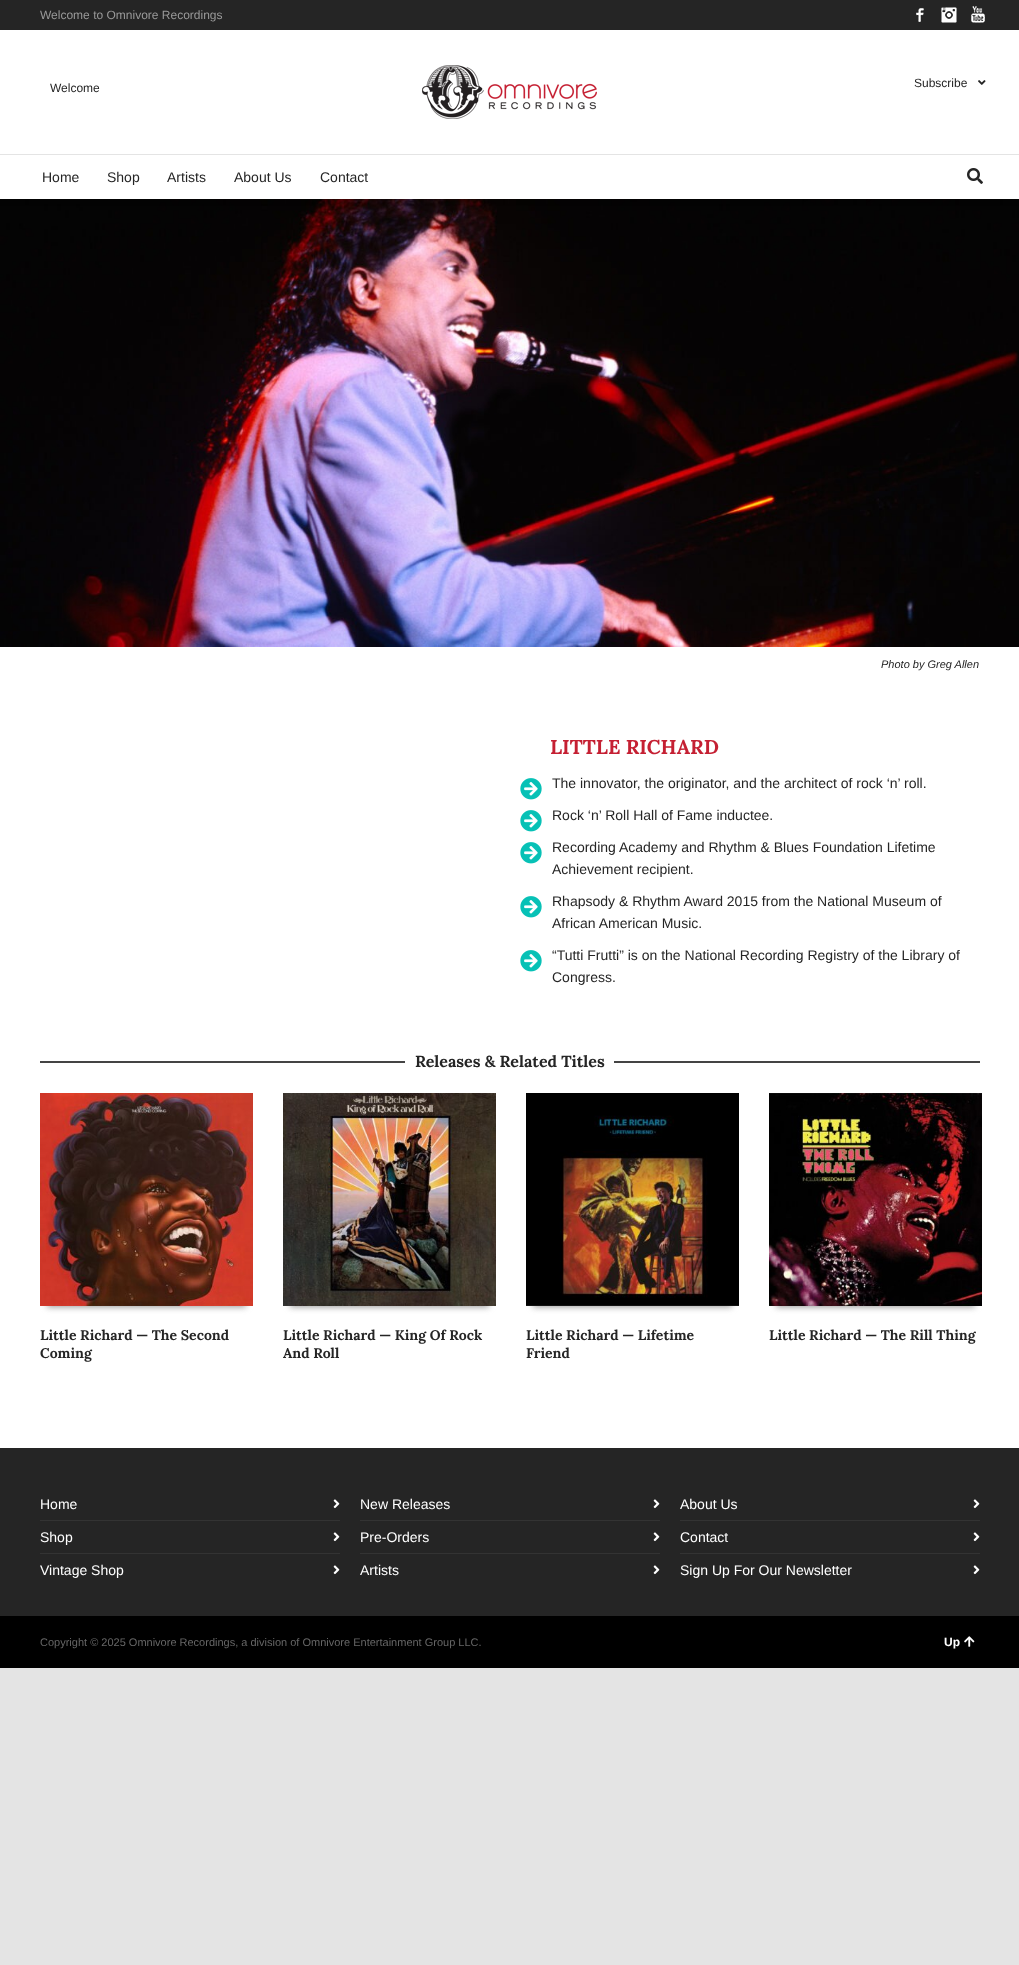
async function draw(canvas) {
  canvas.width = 1019
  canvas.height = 1965
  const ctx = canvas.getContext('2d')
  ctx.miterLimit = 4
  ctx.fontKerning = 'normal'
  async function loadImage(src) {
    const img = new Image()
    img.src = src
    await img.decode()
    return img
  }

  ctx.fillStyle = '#e4e4e4'
  ctx.fillRect(0, 0, 1019, 1965)
  ctx.drawImage(await loadImage('image6.png'), 0, 199, 1019, 448)
  ctx.fillStyle = '#0000000d'
  ctx.filter = 'blur(2.5px)'
  ctx.beginPath()
  ctx.rect(0, 33, 1019, 169)
  ctx.fill()
  ctx.filter = 'none'
  ctx.fillStyle = '#252525'
  ctx.fillRect(0, 0, 1019, 30)
  ctx.font = '12px Liberation Sans'
  ctx.fillStyle = '#999'
  ctx.fillText('Welcome to Omnivore Recordings', 40, 19)
  ctx.drawImage(await loadImage('image0.png'), 916, 8, 8, 14)
  ctx.drawImage(await loadImage('image1.png'), 941, 7, 16, 16)
  ctx.drawImage(await loadImage('image2.png'), 971, 6, 14, 17)
  ctx.fillStyle = '#fff'
  ctx.fillRect(0, 30, 1019, 169)
  ctx.fillStyle = '#252525'
  ctx.fillText('Welcome', 50, 92)
  ctx.drawImage(await loadImage('image3.png'), 422, 65, 175, 54)
  ctx.fillText('Subscribe', 914, 87)
  ctx.drawImage(await loadImage('image4.png'), 978, 80, 8, 5)
  ctx.fillStyle = '#e4e4e4'
  ctx.fillRect(0, 154, 1019, 1)
  ctx.font = '14px Liberation Sans'
  ctx.fillStyle = '#252525'
  ctx.fillText('Home', 42, 182)
  ctx.fillText('Shop', 107, 182)
  ctx.fillText('Artists', 167, 182)
  ctx.fillText('About Us', 234, 182)
  ctx.fillText('Contact', 320, 182)
  ctx.drawImage(await loadImage('image5.png'), 967, 168, 16, 16)
  ctx.fillStyle = '#fff'
  ctx.fillRect(0, 647, 1019, 801)
  ctx.font = 'italic 11px Liberation Sans'
  ctx.fillStyle = '#252525'
  ctx.fillText('Photo by Greg Allen', 881, 668)
  ctx.font = 'bold 20px Lora'
  ctx.fillStyle = '#c52033'
  ctx.fillText('LITTLE RICHARD', 550, 754)
  ctx.drawImage(await loadImage('image7.png'), 520, 778, 22, 22)
  ctx.font = '14px Liberation Sans'
  ctx.fillStyle = '#252525'
  ctx.fillText('The innovator, the originator, and the architect of rock ‘n’ roll.', 552, 788)
  ctx.drawImage(await loadImage('image7.png'), 520, 810, 22, 22)
  ctx.fillText('Rock ‘n’ Roll Hall of Fame inductee.', 552, 820)
  ctx.drawImage(await loadImage('image7.png'), 520, 842, 22, 22)
  ctx.fillText('Recording Academy and Rhythm & Blues Foundation Lifetime', 552, 852)
  ctx.fillText('Achievement recipient.', 552, 874)
  ctx.drawImage(await loadImage('image7.png'), 520, 896, 22, 22)
  ctx.fillText('Rhapsody & Rhythm Award 2015 from the National Museum of', 552, 906)
  ctx.fillText('African American Music.', 552, 928)
  ctx.drawImage(await loadImage('image7.png'), 520, 950, 22, 22)
  ctx.fillText('“Tutti Frutti” is on the National Recording Registry of the Library of', 552, 960)
  ctx.fillText('Congress.', 552, 982)
  ctx.fillStyle = '#444'
  ctx.fillRect(40, 1061, 940, 2)
  ctx.fillStyle = '#fff'
  ctx.fillRect(405, 1061, 209, 2)
  ctx.font = 'bold 16px Lora'
  ctx.fillStyle = '#252525'
  ctx.fillText('Releases & Related Titles', 415, 1067)
  ctx.fillStyle = '#999'
  ctx.filter = 'blur(3px)'
  ctx.beginPath()
  ctx.rect(47, 1108, 199, 199)
  ctx.fill()
  ctx.filter = 'none'
  ctx.drawImage(await loadImage('image8.png'), 40, 1093, 213, 213)
  ctx.font = 'bold 14px Lora'
  ctx.fillStyle = '#252525'
  ctx.fillText('Little Richard — The Second', 40, 1340)
  ctx.fillText('Coming', 40, 1358)
  ctx.fillStyle = '#999'
  ctx.filter = 'blur(3px)'
  ctx.beginPath()
  ctx.rect(290, 1108, 199, 199)
  ctx.fill()
  ctx.filter = 'none'
  ctx.drawImage(await loadImage('image9.png'), 283, 1093, 213, 213)
  ctx.fillStyle = '#252525'
  ctx.fillText('Little Richard — King Of Rock', 283, 1340)
  ctx.fillText('And Roll', 283, 1358)
  ctx.fillStyle = '#999'
  ctx.filter = 'blur(3px)'
  ctx.beginPath()
  ctx.rect(533, 1108, 199, 199)
  ctx.fill()
  ctx.filter = 'none'
  ctx.drawImage(await loadImage('image10.png'), 526, 1093, 213, 213)
  ctx.fillStyle = '#252525'
  ctx.fillText('Little Richard — Lifetime', 526, 1340)
  ctx.fillText('Friend', 526, 1358)
  ctx.fillStyle = '#999'
  ctx.filter = 'blur(3px)'
  ctx.beginPath()
  ctx.rect(776, 1108, 199, 199)
  ctx.fill()
  ctx.filter = 'none'
  ctx.drawImage(await loadImage('image11.png'), 769, 1093, 213, 213)
  ctx.fillStyle = '#252525'
  ctx.fillText('Little Richard — The Rill Thing', 769, 1340)
  ctx.fillRect(0, 1448, 1019, 168)
  ctx.font = '14px Liberation Sans'
  ctx.fillStyle = '#fff'
  ctx.fillText('Home', 40, 1509)
  ctx.drawImage(await loadImage('image12.png'), 333, 1499, 7, 10)
  ctx.fillStyle = '#333'
  ctx.fillRect(40, 1520, 300, 1)
  ctx.fillStyle = '#fff'
  ctx.fillText('Shop', 40, 1542)
  ctx.drawImage(await loadImage('image12.png'), 333, 1532, 7, 10)
  ctx.fillStyle = '#333'
  ctx.fillRect(40, 1553, 300, 1)
  ctx.fillStyle = '#fff'
  ctx.fillText('Vintage Shop', 40, 1575)
  ctx.drawImage(await loadImage('image12.png'), 333, 1565, 7, 10)
  ctx.fillText('New Releases', 360, 1509)
  ctx.drawImage(await loadImage('image12.png'), 653, 1499, 7, 10)
  ctx.fillStyle = '#333'
  ctx.fillRect(360, 1520, 300, 1)
  ctx.fillStyle = '#fff'
  ctx.fillText('Pre-Orders', 360, 1542)
  ctx.drawImage(await loadImage('image12.png'), 653, 1532, 7, 10)
  ctx.fillStyle = '#333'
  ctx.fillRect(360, 1553, 300, 1)
  ctx.fillStyle = '#fff'
  ctx.fillText('Artists', 360, 1575)
  ctx.drawImage(await loadImage('image12.png'), 653, 1565, 7, 10)
  ctx.fillText('About Us', 680, 1509)
  ctx.drawImage(await loadImage('image12.png'), 973, 1499, 7, 10)
  ctx.fillStyle = '#333'
  ctx.fillRect(680, 1520, 300, 1)
  ctx.fillStyle = '#fff'
  ctx.fillText('Contact', 680, 1542)
  ctx.drawImage(await loadImage('image12.png'), 973, 1532, 7, 10)
  ctx.fillStyle = '#333'
  ctx.fillRect(680, 1553, 300, 1)
  ctx.fillStyle = '#fff'
  ctx.fillText('Sign Up For Our Newsletter', 680, 1575)
  ctx.drawImage(await loadImage('image12.png'), 973, 1565, 7, 10)
  ctx.fillStyle = '#000'
  ctx.fillRect(0, 1616, 1019, 52)
  ctx.font = '11px Liberation Sans'
  ctx.fillStyle = '#666'
  ctx.fillText('Copyright © 2025 Omnivore Recordings, a division of Omnivore Entertainment Group LLC.', 40, 1646)
  ctx.font = 'bold 12px Liberation Sans'
  ctx.fillStyle = '#fff'
  ctx.fillText('Up', 944, 1646)
  ctx.drawImage(await loadImage('image13.png'), 964, 1636, 11, 11)
}

draw(document.querySelector('canvas'))
